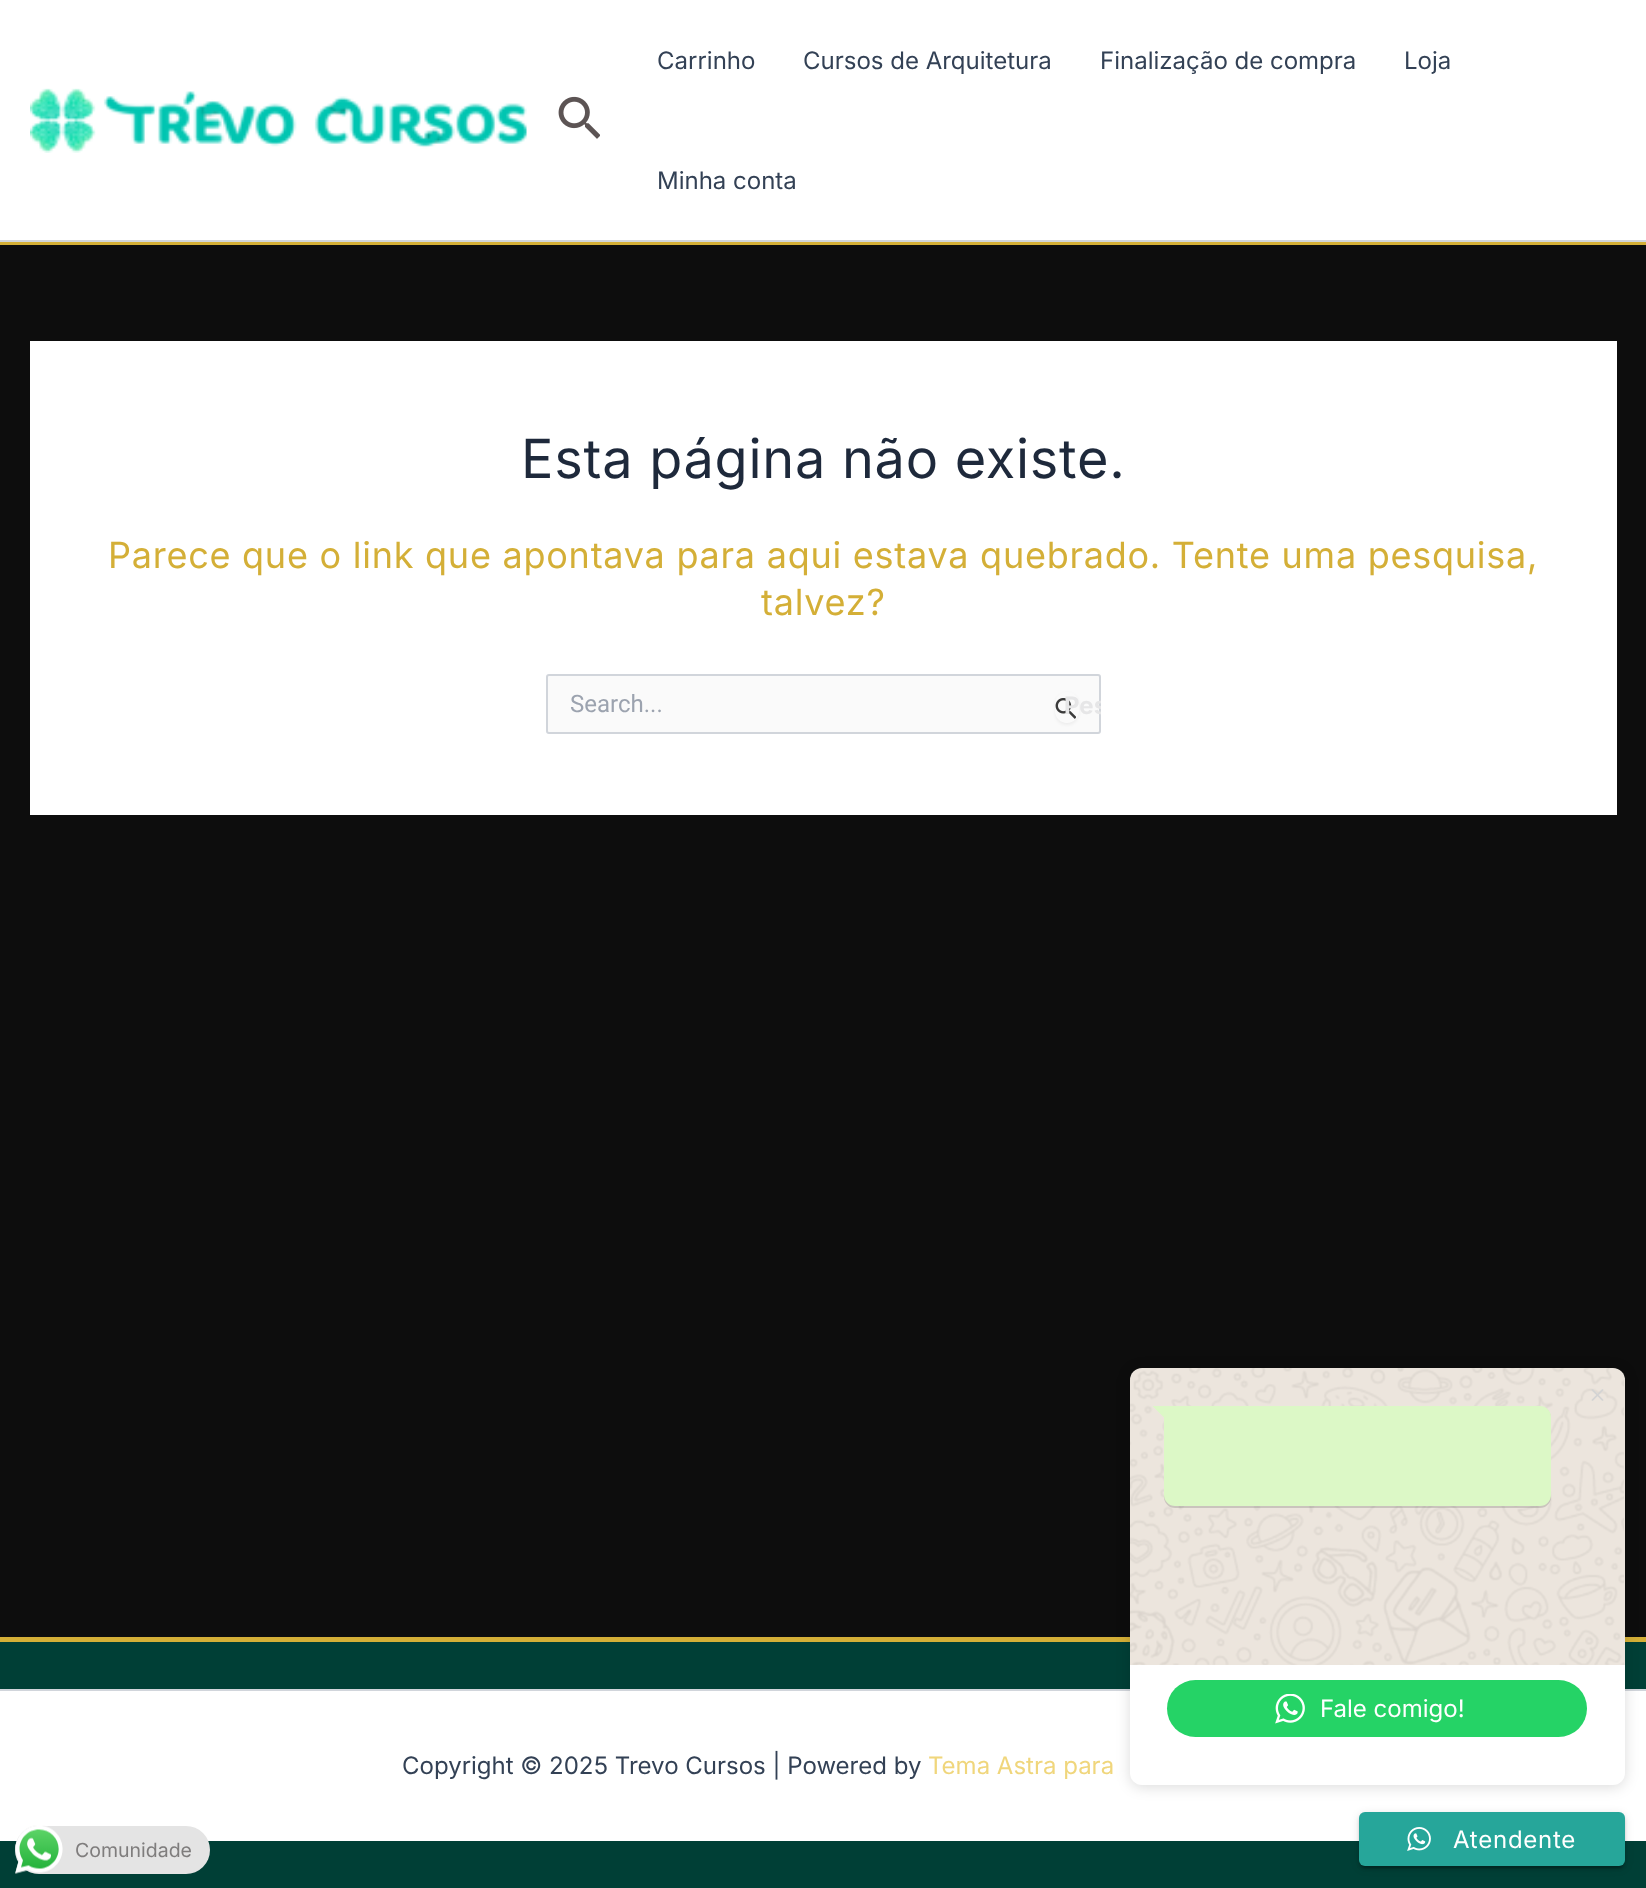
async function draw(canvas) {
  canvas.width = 1646
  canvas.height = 1888
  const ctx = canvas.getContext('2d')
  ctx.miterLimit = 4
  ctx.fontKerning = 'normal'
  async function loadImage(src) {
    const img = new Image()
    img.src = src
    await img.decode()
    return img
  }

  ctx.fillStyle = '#0d0d0d'
  ctx.fillRect(0, 0, 1646, 1888)
  ctx.fillStyle = '#d4af37'
  ctx.fillRect(0, 242, 1646, 3)
  ctx.fillStyle = '#fff'
  ctx.fillRect(0, 0, 1646, 240)
  ctx.fillStyle = '#d1d5db'
  ctx.fillRect(0, 240, 1646, 2)
  ctx.drawImage(await loadImage('image0.png'), 30, 88, 497, 65)
  ctx.drawImage(await loadImage('image1.png'), 558, 96, 42, 43)
  ctx.font = '24px Inter'
  ctx.fillStyle = '#334155'
  ctx.fillText('Carrinho', 657, 69)
  ctx.fillText('Cursos de Arquitetura', 803, 69)
  ctx.fillText('Finalização de compra', 1100, 69)
  ctx.fillText('Loja', 1404, 69)
  ctx.fillText('Minha conta', 657, 189)
  ctx.fillStyle = '#fff'
  ctx.fillRect(30, 341, 1587, 474)
  ctx.letterSpacing = '0.75px'
  ctx.font = '54px Inter'
  ctx.fillStyle = '#1e293b'
  ctx.fillText('Esta página não existe.', 521, 478)
  ctx.font = '36px Inter'
  ctx.fillStyle = '#d4af37'
  ctx.fillText('Parece que o link que apontava para aqui estava quebrado. Tente uma pesquisa,', 108, 568)
  ctx.fillText('talvez?', 761, 615)
  ctx.fillStyle = '#fafafa'
  ctx.beginPath()
  ctx.roundRect(547, 675, 553, 58, 2)
  ctx.fill()
  ctx.strokeStyle = '#d1d5db'
  ctx.lineWidth = 2
  ctx.stroke()
  ctx.letterSpacing = '0px'
  ctx.font = '24px Roboto'
  ctx.fillStyle = '#9ca3af'
  ctx.fillText('Search...', 570, 712)
  ctx.save()
  ctx.beginPath()
  ctx.moveTo(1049, 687)
  ctx.lineTo(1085, 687)
  ctx.lineTo(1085, 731)
  ctx.lineTo(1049, 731)
  ctx.closePath()
  ctx.moveTo(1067, 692)
  ctx.bezierCurveTo(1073.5, 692, 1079, 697.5, 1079, 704)
  ctx.lineTo(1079, 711)
  ctx.bezierCurveTo(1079, 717.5, 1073.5, 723, 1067, 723)
  ctx.bezierCurveTo(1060.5, 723, 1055, 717.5, 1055, 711)
  ctx.lineTo(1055, 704)
  ctx.bezierCurveTo(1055, 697.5, 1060.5, 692, 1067, 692)
  ctx.closePath()
  ctx.clip('evenodd')
  ctx.fillStyle = '#0000000d'
  ctx.filter = 'blur(1.5px)'
  ctx.beginPath()
  ctx.roundRect(1055, 693, 24, 32, 12)
  ctx.fill()
  ctx.filter = 'none'
  ctx.restore()
  ctx.drawImage(await loadImage('image2.png'), 1055, 698, 21, 21)
  ctx.save()
  ctx.beginPath()
  ctx.roundRect(1034, 674, 67, 63, 3)
  ctx.clip()
  ctx.font = 'bold 24px Inter'
  ctx.fillStyle = '#e6e6e7'
  ctx.fillText('Pes', 1064, 714)
  ctx.restore()
  ctx.fillStyle = '#003f36'
  ctx.fillRect(0, 1642, 1646, 246)
  ctx.fillStyle = '#d4af37'
  ctx.fillRect(0, 1637, 1646, 5)
  ctx.fillStyle = '#fff'
  ctx.fillRect(0, 1691, 1646, 150)
  ctx.fillStyle = '#d1d5db'
  ctx.fillRect(0, 1689, 1646, 2)
  ctx.font = '24px Inter'
  ctx.fillStyle = '#334155'
  ctx.fillText('Copyright © 2025 Trevo Cursos | Powered by', 402, 1774)
  ctx.fillStyle = '#f0d67c'
  ctx.fillText('Tema Astra para', 928, 1774)
  ctx.fillStyle = '#e4e4e4'
  ctx.beginPath()
  ctx.roundRect(15, 1826, 195, 48, 24)
  ctx.fill()
  ctx.drawImage(await loadImage('image3.png'), 15, 1825, 48, 49)
  ctx.font = '19.5px Inter'
  ctx.fillStyle = '#7f7d7d'
  ctx.fillText('Comunidade', 75, 1857)
  ctx.fillStyle = '#00000024'
  ctx.filter = 'blur(7px)'
  ctx.beginPath()
  ctx.roundRect(1130, 1370, 495, 417, 12)
  ctx.fill()
  ctx.filter = 'none'
  ctx.fillStyle = '#ece5dd'
  ctx.beginPath()
  ctx.roundRect(1130, 1368, 495, 297, [12, 12, 0, 0])
  ctx.fill()
  ctx.drawImage(await loadImage('image5.png'), 1130, 1368, 494, 297)
  ctx.drawImage(await loadImage('image4.png'), 1591, 1389, 13, 12)
  ctx.fillStyle = '#00000024'
  ctx.filter = 'blur(0.5px)'
  ctx.beginPath()
  ctx.roundRect(1164, 1407, 387, 101, 11)
  ctx.fill()
  ctx.filter = 'none'
  ctx.fillStyle = '#dcf8c6'
  ctx.beginPath()
  ctx.roundRect(1164, 1406, 387, 100, [0, 11, 11, 11])
  ctx.fill()
  ctx.beginPath()
  ctx.moveTo(1165, 1406)
  ctx.lineTo(1165, 1418.5)
  ctx.lineTo(1152.5, 1406)
  ctx.closePath()
  ctx.fill()
  ctx.fillStyle = '#fff'
  ctx.fillRect(1130, 1665, 495, 84)
  ctx.fillStyle = '#25d366'
  ctx.beginPath()
  ctx.roundRect(1167, 1680, 420, 57, 28.5)
  ctx.fill()
  ctx.drawImage(await loadImage('image6.png'), 1275, 1694, 30, 30)
  ctx.font = '24px Inter'
  ctx.fillStyle = '#fff'
  ctx.fillText('Fale comigo!', 1320, 1717)
  ctx.beginPath()
  ctx.roundRect(1130, 1749, 495, 36, [0, 0, 12, 12])
  ctx.fill()
  ctx.fillStyle = '#00000033'
  ctx.filter = 'blur(1px)'
  ctx.beginPath()
  ctx.roundRect(1362, 1820, 260, 48, 3)
  ctx.fill()
  ctx.filter = 'none'
  ctx.fillStyle = '#0000001f'
  ctx.filter = 'blur(4px)'
  ctx.beginPath()
  ctx.roundRect(1359, 1814, 266, 54, 6)
  ctx.fill()
  ctx.filter = 'none'
  ctx.fillStyle = '#00000024'
  ctx.filter = 'blur(1.5px)'
  ctx.beginPath()
  ctx.roundRect(1359, 1815, 266, 54, 6)
  ctx.fill()
  ctx.filter = 'none'
  ctx.fillStyle = '#26a69a'
  ctx.beginPath()
  ctx.roundRect(1359, 1812, 266, 54, 6)
  ctx.fill()
  ctx.drawImage(await loadImage('image7.png'), 1407, 1827, 24, 24)
  ctx.letterSpacing = '0.75px'
  ctx.fillStyle = '#fff'
  ctx.fillText('Atendente', 1453, 1848)
}

draw(document.querySelector('canvas'))
